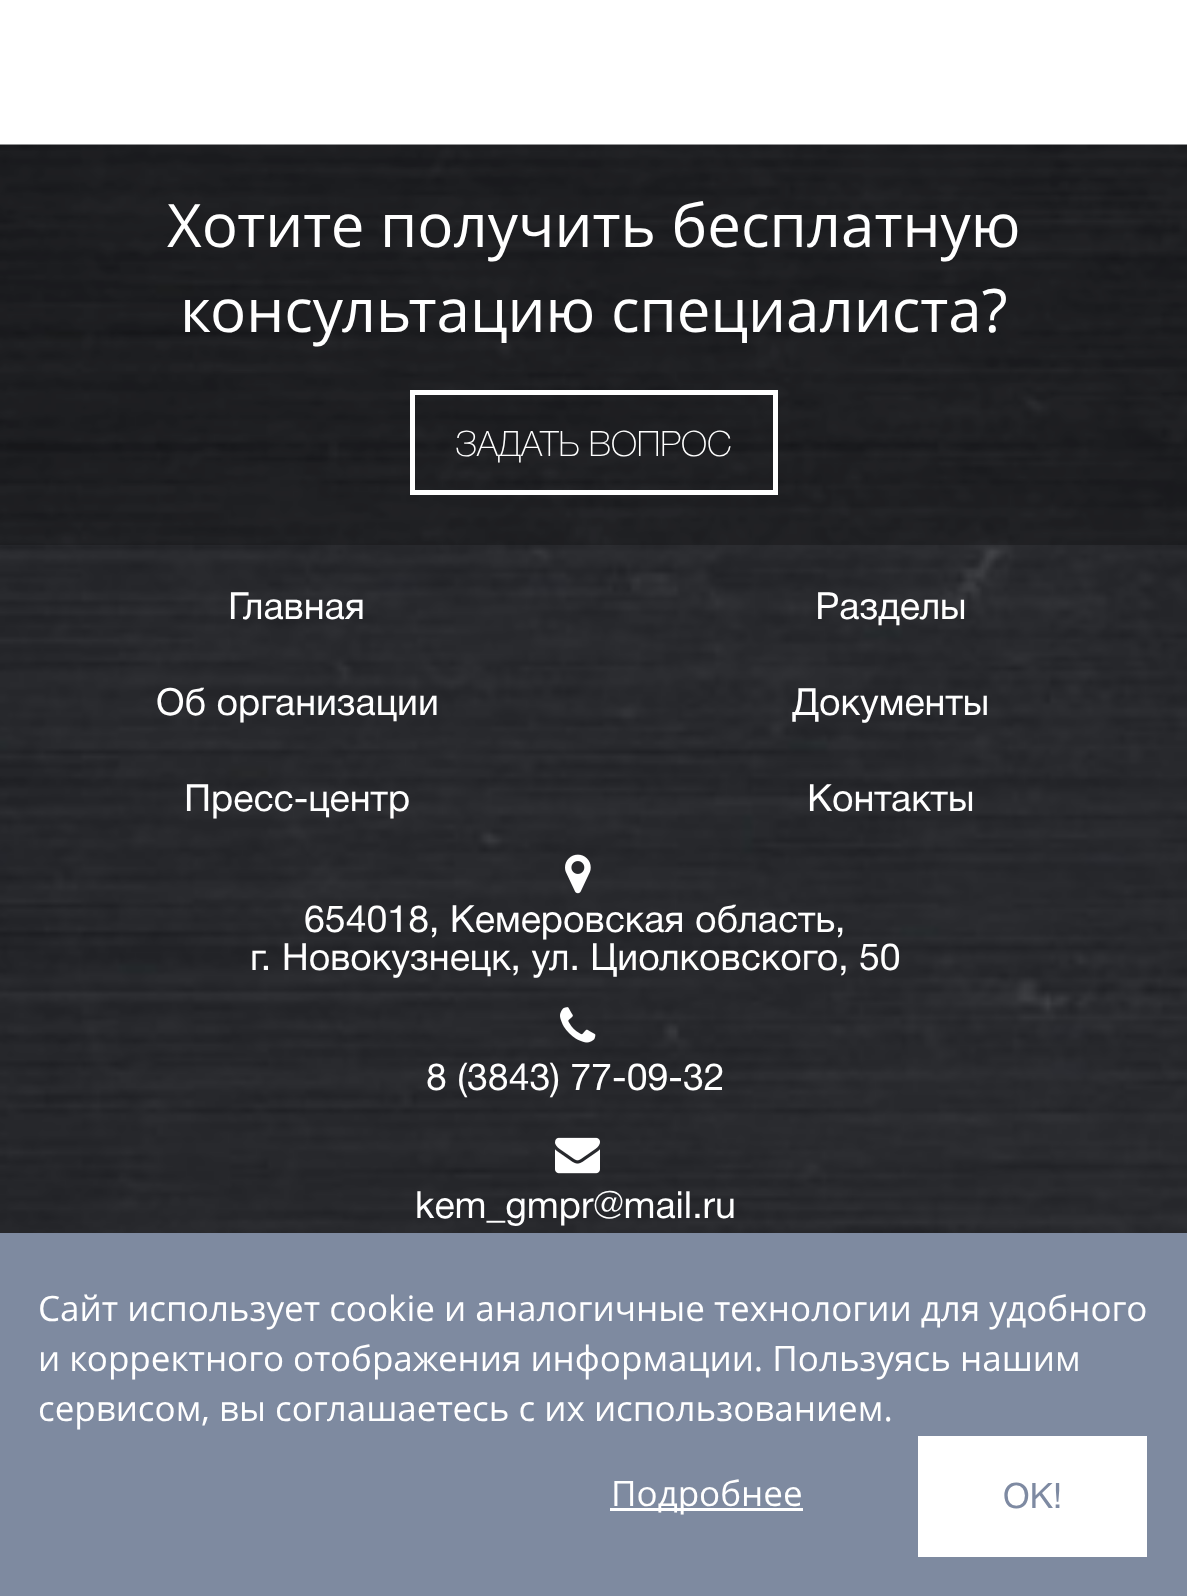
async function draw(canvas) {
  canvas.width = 1187
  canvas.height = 1596
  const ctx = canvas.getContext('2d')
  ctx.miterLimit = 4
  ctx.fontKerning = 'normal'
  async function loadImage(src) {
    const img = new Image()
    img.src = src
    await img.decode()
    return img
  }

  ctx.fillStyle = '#fff'
  ctx.fillRect(0, 0, 1187, 1596)
  ctx.drawImage(await loadImage('image0.png'), 0, 144, 1187, 1089)
  ctx.fillStyle = '#0000003b'
  ctx.fillRect(0, 145, 1187, 400)
  ctx.font = '60px Open Sans'
  ctx.fillStyle = '#fff'
  ctx.fillText('Хотите получить бесплатную', 167, 247)
  ctx.fillText('консультацию специалиста?', 180, 332)
  ctx.strokeStyle = '#fff'
  ctx.lineWidth = 5
  ctx.strokeRect(412.5, 392.5, 363, 100)
  ctx.font = '100 35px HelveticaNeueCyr'
  ctx.fillText('ЗАДАТЬ ВОПРОС', 455, 456)
  ctx.font = '37.5px HelveticaNeueCyr'
  ctx.fillText('Главная', 228, 619)
  ctx.fillText('Об организации', 156, 715)
  ctx.fillText('Пресс-центр', 184, 811)
  ctx.fillText('Разделы', 815, 619)
  ctx.fillText('Документы', 792, 715)
  ctx.fillText('Контакты', 807, 811)
  ctx.drawImage(await loadImage('image1.png'), 565, 854, 26, 40)
  ctx.fillText('654018, Кемеровская область,', 304, 932)
  ctx.fillText('г. Новокузнецк, ул. Циолковского, 50', 250, 970)
  ctx.drawImage(await loadImage('image2.png'), 560, 1007, 36, 36)
  ctx.fillText('8 (3843) 77-09-32', 426, 1090)
  ctx.drawImage(await loadImage('image3.png'), 555, 1137, 45, 37)
  ctx.fillText('kem_gmpr@mail.ru', 415, 1218)
  ctx.fillStyle = '#7e8aa0'
  ctx.fillRect(0, 1233, 1187, 363)
  ctx.font = '35px Open Sans'
  ctx.fillStyle = '#fff'
  ctx.fillText('Сайт использует cookie и аналогичные технологии для удобного', 38, 1321)
  ctx.fillText('и корректного отображения информации. Пользуясь нашим', 38, 1371)
  ctx.fillText('сервисом, вы соглашаетесь с их использованием.', 38, 1421)
  ctx.fillRect(610, 1508, 193, 3)
  ctx.fillText('Подробнее', 611, 1506)
  ctx.fillRect(918, 1436, 229, 121)
  ctx.font = '35px HelveticaNeueCyr'
  ctx.fillStyle = '#7e8aa2'
  ctx.fillText('OK!', 1003, 1508)
}

draw(document.querySelector('canvas'))
